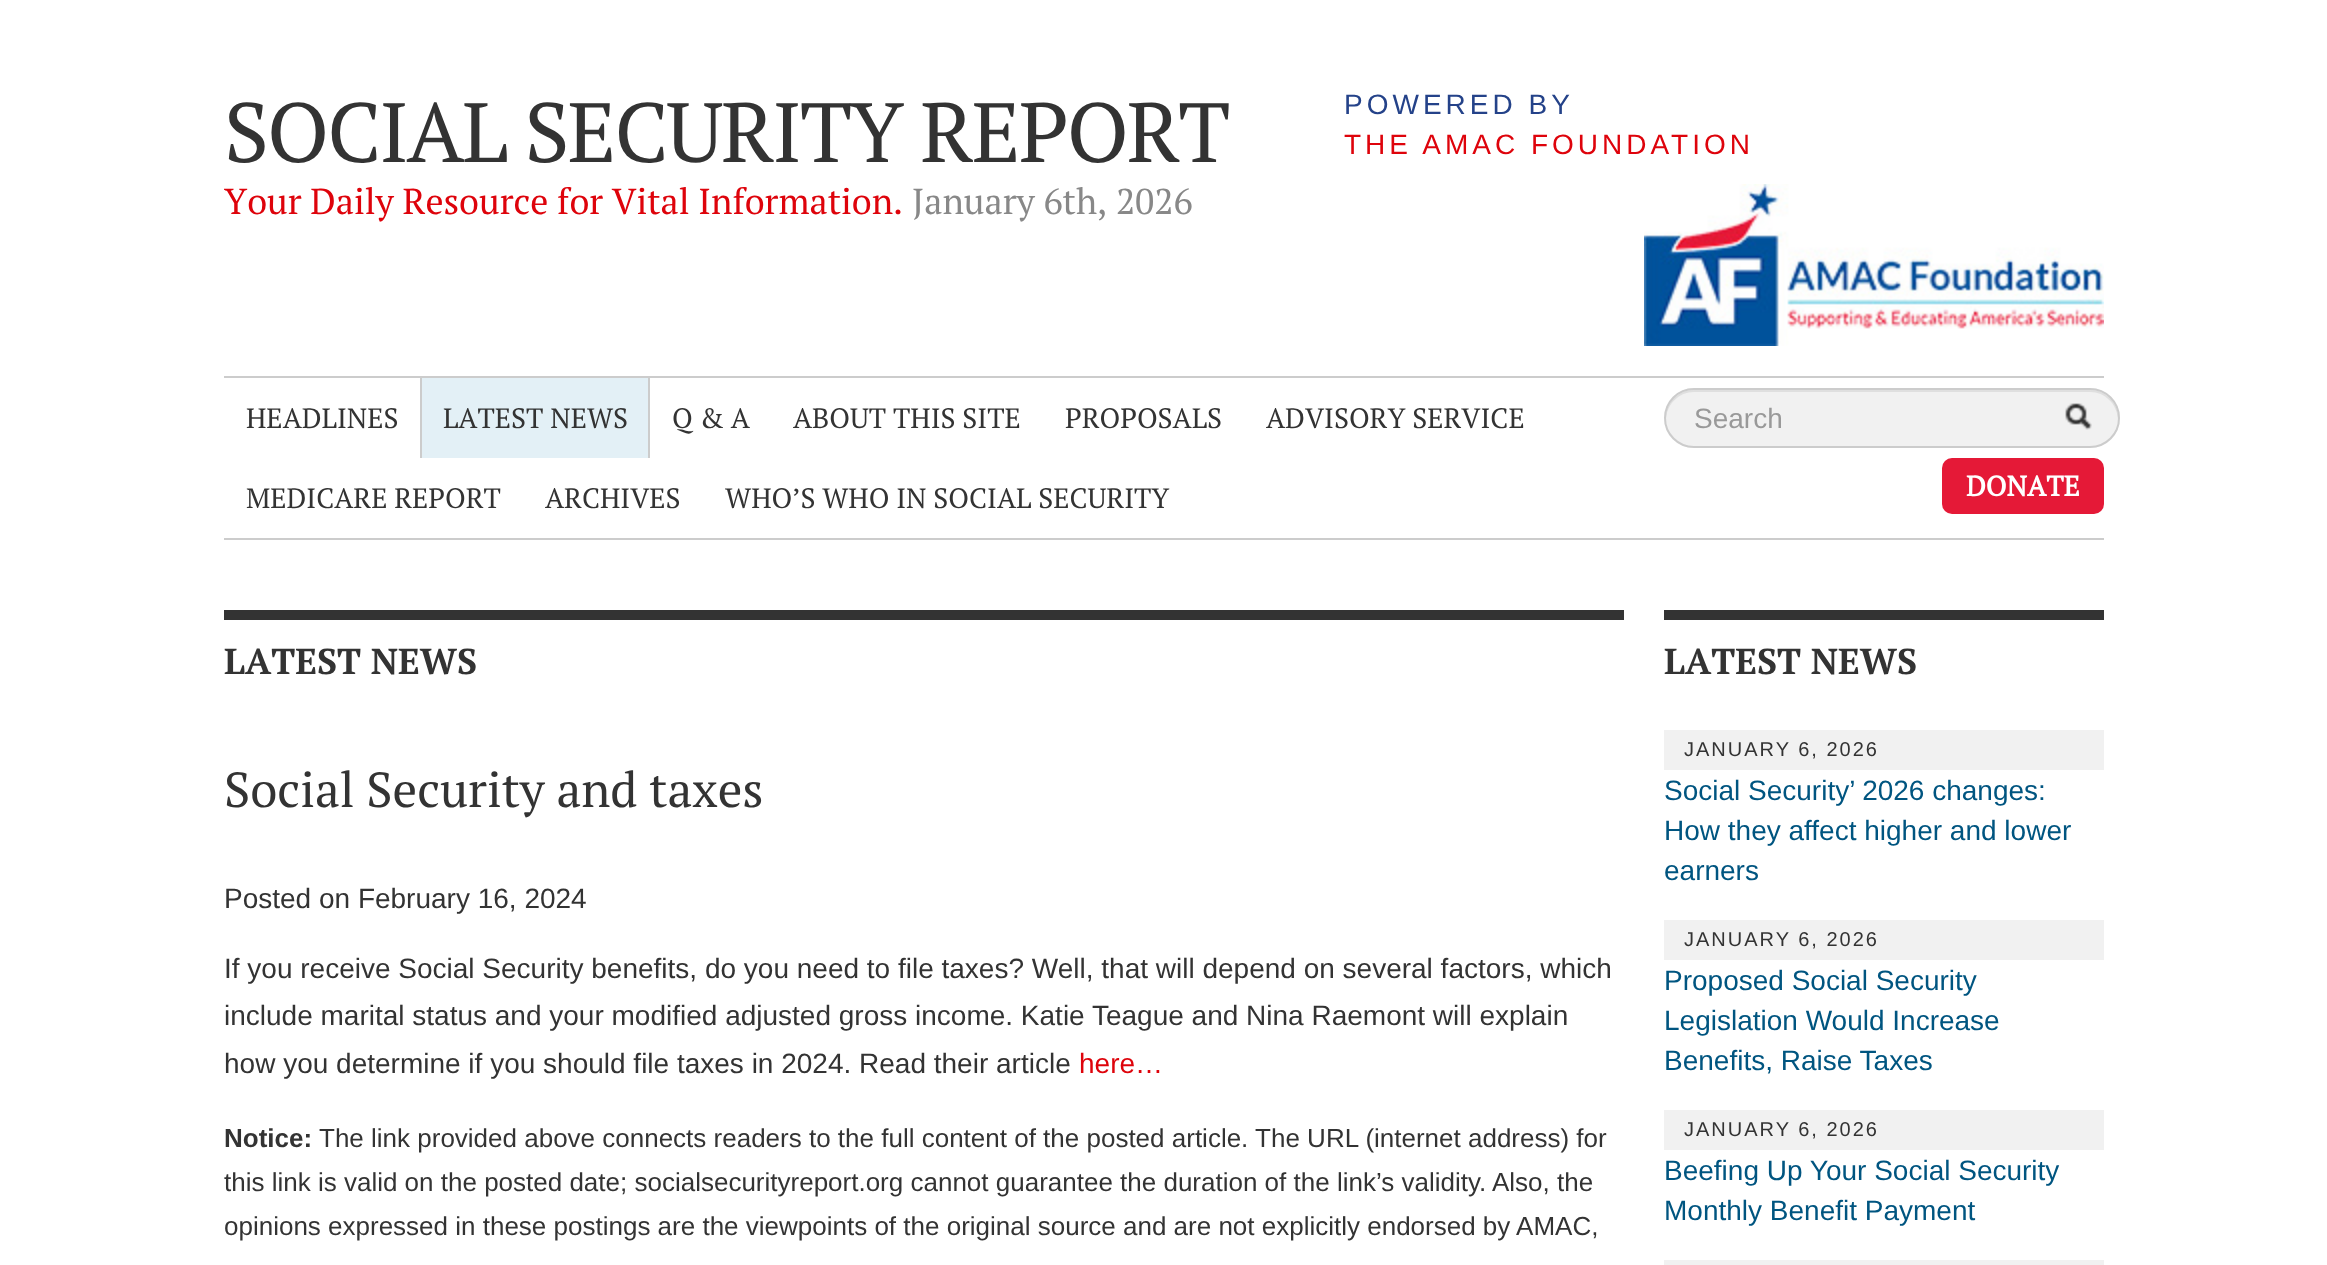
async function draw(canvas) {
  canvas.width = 2327
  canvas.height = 1265
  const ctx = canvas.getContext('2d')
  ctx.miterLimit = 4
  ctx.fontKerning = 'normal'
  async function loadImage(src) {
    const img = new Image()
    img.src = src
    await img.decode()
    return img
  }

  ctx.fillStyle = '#fff'
  ctx.fillRect(0, 0, 2327, 1265)
  ctx.letterSpacing = '-2px'
  ctx.font = '84px PT Serif'
  ctx.fillStyle = '#333'
  ctx.fillText('SOCIAL SECURITY REPORT', 224, 162)
  ctx.letterSpacing = '0px'
  ctx.font = '36px PT Serif'
  ctx.fillStyle = '#de030b'
  ctx.fillText('Your Daily Resource for Vital Information.', 224, 214)
  ctx.fillStyle = '#888'
  ctx.fillText('January 6th, 2026', 912, 214)
  ctx.letterSpacing = '4px'
  ctx.font = '28px Liberation Sans'
  ctx.fillStyle = '#244289'
  ctx.fillText('POWERED BY', 1344, 114)
  ctx.fillStyle = '#de030b'
  ctx.fillText('THE AMAC FOUNDATION', 1344, 154)
  ctx.drawImage(await loadImage('image0.png'), 1644, 184, 460, 162)
  ctx.fillStyle = '#ccc'
  ctx.fillRect(224, 376, 1880, 2)
  ctx.fillRect(224, 538, 1880, 2)
  ctx.letterSpacing = '0px'
  ctx.font = '28px PT Serif'
  ctx.fillStyle = '#333'
  ctx.fillText('HEADLINES', 246, 428)
  ctx.fillStyle = '#e3f0f6'
  ctx.fillRect(422, 378, 226, 80)
  ctx.fillStyle = '#ccc'
  ctx.fillRect(648, 378, 2, 80)
  ctx.fillRect(420, 378, 2, 80)
  ctx.fillStyle = '#333'
  ctx.fillText('LATEST NEWS', 443, 428)
  ctx.fillText('Q & A', 672, 428)
  ctx.fillText('ABOUT THIS SITE', 793, 428)
  ctx.fillText('PROPOSALS', 1065, 428)
  ctx.fillText('ADVISORY SERVICE', 1266, 428)
  ctx.fillText('MEDICARE REPORT', 246, 508)
  ctx.fillText('ARCHIVES', 545, 508)
  ctx.fillText('WHO’S WHO IN SOCIAL SECURITY', 725, 508)
  ctx.fillStyle = '#f1f1f1'
  ctx.beginPath()
  ctx.roundRect(1664, 388, 456, 60, 30)
  ctx.fill()
  ctx.fillStyle = '#dfdfdf'
  ctx.beginPath()
  ctx.moveTo(1694, 392)
  ctx.lineTo(2090, 392)
  ctx.bezierCurveTo(2105, 392, 2117, 404, 2118, 419)
  ctx.bezierCurveTo(2119, 403, 2106, 390, 2090, 390)
  ctx.lineTo(1694, 390)
  ctx.bezierCurveTo(1678, 390, 1665, 403, 1666, 419)
  ctx.bezierCurveTo(1667, 404, 1679, 392, 1694, 392)
  ctx.closePath()
  ctx.fill()
  ctx.beginPath()
  ctx.roundRect(1665, 389, 454, 58, 29)
  ctx.strokeStyle = '#ccc'
  ctx.lineWidth = 2
  ctx.stroke()
  ctx.font = '28px Liberation Sans'
  ctx.fillStyle = '#999'
  ctx.fillText('Search', 1694, 428)
  ctx.drawImage(await loadImage('image1.png'), 2065, 403, 27, 27)
  ctx.fillStyle = '#e51937'
  ctx.beginPath()
  ctx.roundRect(1942, 458, 162, 56, 10)
  ctx.fill()
  ctx.font = 'bold 28px PT Serif'
  ctx.fillStyle = '#fff'
  ctx.fillText('DONATE', 1966, 496)
  ctx.fillStyle = '#333'
  ctx.fillRect(224, 610, 1400, 10)
  ctx.font = 'bold 36px "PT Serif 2"'
  ctx.fillText('LATEST NEWS', 224, 674)
  ctx.font = '49px PT Serif'
  ctx.fillText('Social Security and taxes', 224, 807)
  ctx.font = '28px Liberation Sans'
  ctx.fillText('Posted on February 16, 2024', 224, 908)
  ctx.fillText('If you receive Social Security benefits, do you need to file taxes? Well, that will depend on several factors, which', 224, 978)
  ctx.fillText('include marital status and your modified adjusted gross income. Katie Teague and Nina Raemont will explain', 224, 1025)
  ctx.fillText('how you determine if you should file taxes in 2024. Read their article', 224, 1073)
  ctx.fillStyle = '#de030b'
  ctx.fillText('here…', 1079, 1073)
  ctx.font = 'bold 26px Liberation Sans'
  ctx.fillStyle = '#333'
  ctx.fillText('Notice:', 224, 1147)
  ctx.font = '26px Liberation Sans'
  ctx.fillText('The link provided above connects readers to the full content of the posted article. The URL (internet address) for', 319, 1147)
  ctx.fillText('this link is valid on the posted date; socialsecurityreport.org cannot guarantee the duration of the link’s validity. Also, the', 224, 1191)
  ctx.fillText('opinions expressed in these postings are the viewpoints of the original source and are not explicitly endorsed by AMAC,', 224, 1235)
  ctx.fillRect(1664, 610, 440, 10)
  ctx.font = 'bold 36px "PT Serif 2"'
  ctx.fillText('LATEST NEWS', 1664, 674)
  ctx.fillStyle = '#f1f1f1'
  ctx.fillRect(1664, 730, 440, 40)
  ctx.letterSpacing = '2px'
  ctx.font = '20px Liberation Sans'
  ctx.fillStyle = '#333'
  ctx.fillText('JANUARY 6, 2026', 1684, 756)
  ctx.letterSpacing = '0px'
  ctx.font = '28px Liberation Sans'
  ctx.fillStyle = '#005580'
  ctx.fillText('Social Security’ 2026 changes:', 1664, 800)
  ctx.fillText('How they affect higher and lower', 1664, 840)
  ctx.fillText('earners', 1664, 880)
  ctx.fillStyle = '#f1f1f1'
  ctx.fillRect(1664, 920, 440, 40)
  ctx.letterSpacing = '2px'
  ctx.font = '20px Liberation Sans'
  ctx.fillStyle = '#333'
  ctx.fillText('JANUARY 6, 2026', 1684, 946)
  ctx.letterSpacing = '0px'
  ctx.font = '28px Liberation Sans'
  ctx.fillStyle = '#005580'
  ctx.fillText('Proposed Social Security', 1664, 990)
  ctx.fillText('Legislation Would Increase', 1664, 1030)
  ctx.fillText('Benefits, Raise Taxes', 1664, 1070)
  ctx.fillStyle = '#f1f1f1'
  ctx.fillRect(1664, 1110, 440, 40)
  ctx.letterSpacing = '2px'
  ctx.font = '20px Liberation Sans'
  ctx.fillStyle = '#333'
  ctx.fillText('JANUARY 6, 2026', 1684, 1136)
  ctx.letterSpacing = '0px'
  ctx.font = '28px Liberation Sans'
  ctx.fillStyle = '#005580'
  ctx.fillText('Beefing Up Your Social Security', 1664, 1180)
  ctx.fillText('Monthly Benefit Payment', 1664, 1220)
  ctx.fillStyle = '#f1f1f1'
  ctx.fillRect(1664, 1260, 440, 5)
}

draw(document.querySelector('canvas'))
